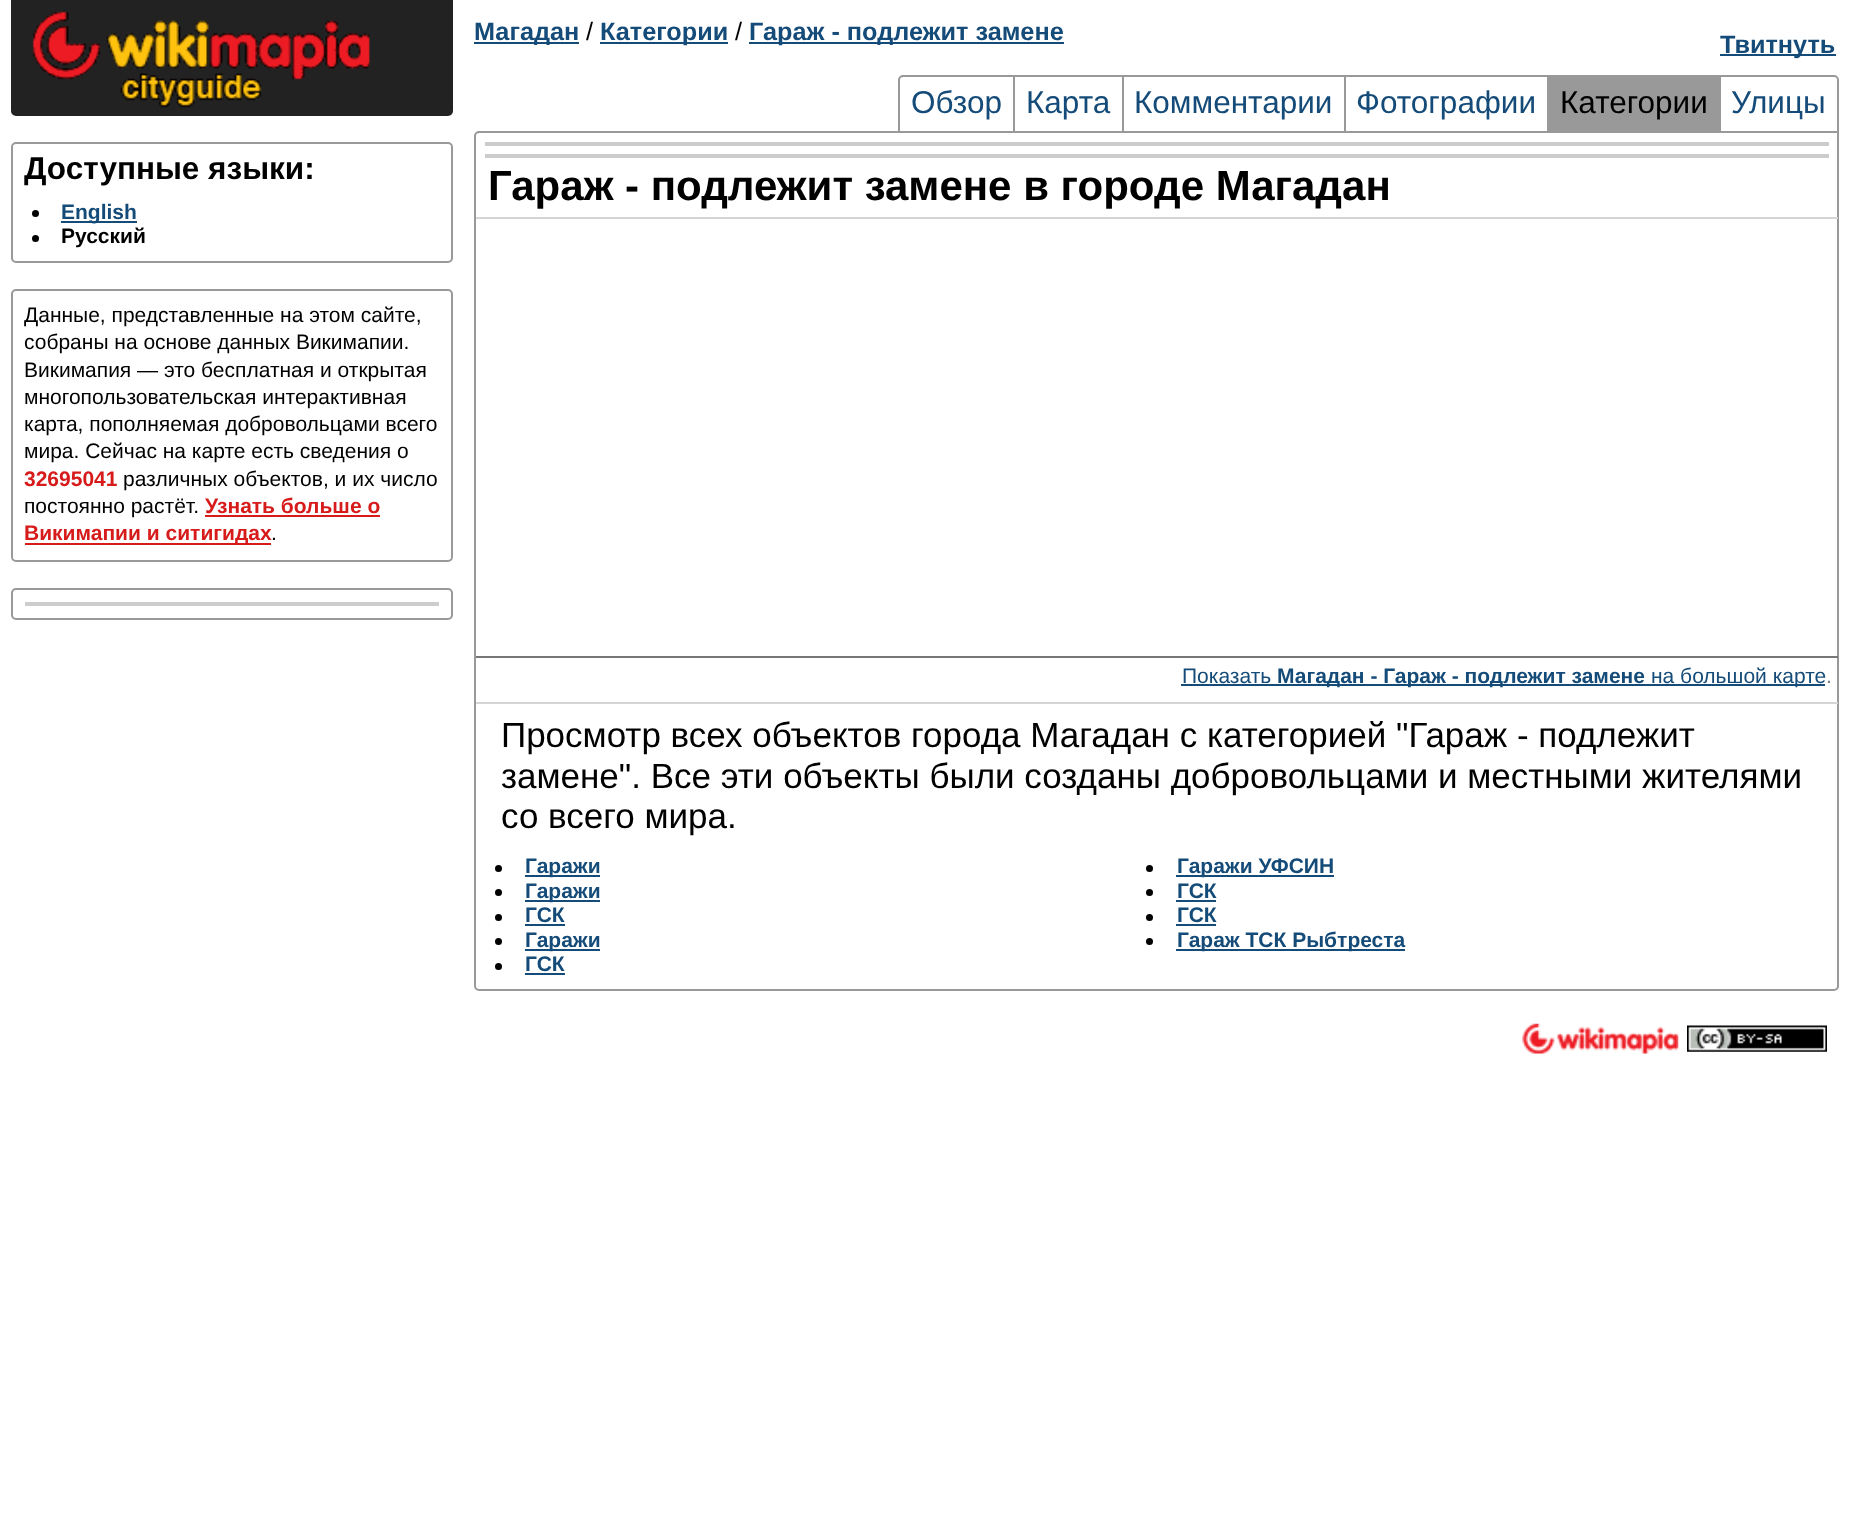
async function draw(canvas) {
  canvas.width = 1851
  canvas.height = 1515
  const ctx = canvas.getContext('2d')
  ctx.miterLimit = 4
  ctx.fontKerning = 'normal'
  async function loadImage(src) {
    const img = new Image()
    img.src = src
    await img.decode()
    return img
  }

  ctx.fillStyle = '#fff'
  ctx.fillRect(0, 0, 1851, 1515)
  ctx.fillStyle = '#144b78'
  ctx.fillRect(474, 42, 105, 2)
  ctx.font = 'bold 25.25px Liberation Sans'
  ctx.fillText('Магадан', 474, 40)
  ctx.font = '25.25px Liberation Sans'
  ctx.fillStyle = '#000'
  ctx.fillText('/', 586, 40)
  ctx.fillStyle = '#144b78'
  ctx.fillRect(600, 42, 128, 2)
  ctx.font = 'bold 25.25px Liberation Sans'
  ctx.fillText('Категории', 600, 40)
  ctx.font = '25.25px Liberation Sans'
  ctx.fillStyle = '#000'
  ctx.fillText('/', 735, 40)
  ctx.fillStyle = '#144b78'
  ctx.fillRect(749, 42, 315, 2)
  ctx.font = 'bold 25.25px Liberation Sans'
  ctx.fillText('Гараж - подлежит замене', 749, 40)
  ctx.fillRect(1720, 54, 116, 2)
  ctx.fillText('Твитнуть', 1720, 53)
  ctx.beginPath()
  ctx.roundRect(899, 76, 939, 56, [4, 4, 0, 0])
  ctx.strokeStyle = '#999'
  ctx.lineWidth = 2
  ctx.stroke()
  ctx.fillStyle = '#999'
  ctx.fillRect(1013, 77, 2, 54)
  ctx.font = '31.5px Liberation Sans'
  ctx.fillStyle = '#144b78'
  ctx.fillText('Обзор', 911, 113)
  ctx.fillStyle = '#999'
  ctx.fillRect(1122, 77, 2, 54)
  ctx.fillStyle = '#144b78'
  ctx.fillText('Карта', 1026, 113)
  ctx.fillStyle = '#999'
  ctx.fillRect(1344, 77, 2, 54)
  ctx.fillStyle = '#144b78'
  ctx.fillText('Комментарии', 1134, 113)
  ctx.fillStyle = '#999'
  ctx.fillRect(1547, 77, 174, 54)
  ctx.fillStyle = '#144b78'
  ctx.fillText('Фотографии', 1356, 113)
  ctx.fillStyle = '#000'
  ctx.fillText('Категории', 1560, 113)
  ctx.fillStyle = '#144b78'
  ctx.fillText('Улицы', 1731, 113)
  ctx.fillStyle = '#222'
  ctx.beginPath()
  ctx.roundRect(12, 1, 440, 114, [0, 0, 4, 4])
  ctx.fill()
  ctx.strokeStyle = '#222'
  ctx.stroke()
  ctx.drawImage(await loadImage('image0.png'), 32, 11, 338, 97)
  ctx.beginPath()
  ctx.roundRect(12, 143, 440, 119, 4)
  ctx.strokeStyle = '#999'
  ctx.stroke()
  ctx.font = 'bold 31.5px Liberation Sans'
  ctx.fillStyle = '#000'
  ctx.fillText('Доступные языки:', 24, 179)
  ctx.beginPath()
  ctx.arc(35.5, 213.5, 3.5, 0, 2 * Math.PI)
  ctx.fill()
  ctx.fillStyle = '#144b78'
  ctx.fillRect(61, 221, 76, 2)
  ctx.font = 'bold 21px Liberation Sans'
  ctx.fillText('English', 61, 219)
  ctx.fillStyle = '#000'
  ctx.beginPath()
  ctx.arc(35.5, 238.5, 3.5, 0, 2 * Math.PI)
  ctx.fill()
  ctx.fillText('Русский', 61, 243)
  ctx.beginPath()
  ctx.roundRect(12, 290, 440, 271, 4)
  ctx.stroke()
  ctx.font = '21px Liberation Sans'
  ctx.fillText('Данные, представленные на этом сайте,', 24, 322)
  ctx.fillText('собраны на основе данных Викимапии.', 24, 349)
  ctx.fillText('Викимапия — это бесплатная и открытая', 24, 377)
  ctx.fillText('многопользовательская интерактивная', 24, 404)
  ctx.fillText('карта, пополняемая добровольцами всего', 24, 431)
  ctx.fillText('мира. Сейчас на карте есть сведения о', 24, 458)
  ctx.font = 'bold 21px Liberation Sans'
  ctx.fillStyle = '#d71a1a'
  ctx.fillText('32695041', 24, 486)
  ctx.font = '21px Liberation Sans'
  ctx.fillStyle = '#000'
  ctx.fillText('различных объектов, и их число', 123, 486)
  ctx.fillText('постоянно растёт.', 24, 513)
  ctx.font = 'bold 21px Liberation Sans'
  ctx.fillStyle = '#d71a1a'
  ctx.fillText('Узнать больше о', 205, 513)
  ctx.fillRect(205, 515, 175, 2)
  ctx.fillRect(25, 543, 246, 2)
  ctx.fillText('Викимапии и ситигидах', 24, 540)
  ctx.font = '21px Liberation Sans'
  ctx.fillStyle = '#000'
  ctx.fillText('.', 271, 540)
  ctx.beginPath()
  ctx.roundRect(12, 589, 440, 30, 4)
  ctx.stroke()
  ctx.fillStyle = '#ccc'
  ctx.fillRect(25, 602, 414, 4)
  ctx.beginPath()
  ctx.roundRect(475, 132, 1363, 858, [4, 0, 4, 4])
  ctx.stroke()
  ctx.fillRect(485, 142, 1344, 4)
  ctx.fillRect(485, 154, 1344, 4)
  ctx.font = 'bold 42px Liberation Sans'
  ctx.fillStyle = '#000'
  ctx.fillText('Гараж - подлежит замене в городе Магадан', 488, 200)
  ctx.fillStyle = '#d5d5d5'
  ctx.fillRect(476, 217, 1362, 2)
  ctx.fillStyle = '#777'
  ctx.fillRect(476, 656, 1362, 2)
  ctx.font = '21px Liberation Sans'
  ctx.fillStyle = '#144b78'
  ctx.fillText('Показать', 1182, 683)
  ctx.fillRect(1181, 684, 644, 2)
  ctx.font = 'bold 21px Liberation Sans'
  ctx.fillText('Магадан - Гараж - подлежит замене', 1277, 683)
  ctx.font = '21px Liberation Sans'
  ctx.fillText('на большой карте', 1651, 683)
  ctx.fillStyle = '#777'
  ctx.fillText('.', 1826, 683)
  ctx.fillStyle = '#d5d5d5'
  ctx.fillRect(476, 702, 1362, 2)
  ctx.font = '35px Liberation Sans'
  ctx.fillStyle = '#000'
  ctx.fillText('Просмотр всех объектов города Магадан с категорией "Гараж - подлежит', 501, 747)
  ctx.fillText('замене". Все эти объекты были созданы добровольцами и местными жителями', 501, 788)
  ctx.fillText('со всего мира.', 501, 828)
  ctx.beginPath()
  ctx.arc(498.5, 868.5, 3.5, 0, 2 * Math.PI)
  ctx.fill()
  ctx.fillStyle = '#144b78'
  ctx.fillRect(525, 875, 75, 2)
  ctx.font = 'bold 21px Liberation Sans'
  ctx.fillText('Гаражи', 525, 873)
  ctx.fillStyle = '#000'
  ctx.beginPath()
  ctx.arc(1149.5, 868.5, 3.5, 0, 2 * Math.PI)
  ctx.fill()
  ctx.fillStyle = '#144b78'
  ctx.fillRect(1176, 875, 158, 2)
  ctx.fillText('Гаражи УФСИН', 1177, 873)
  ctx.fillStyle = '#000'
  ctx.beginPath()
  ctx.arc(498.5, 892.5, 3.5, 0, 2 * Math.PI)
  ctx.fill()
  ctx.fillStyle = '#144b78'
  ctx.fillRect(525, 900, 75, 2)
  ctx.fillText('Гаражи', 525, 898)
  ctx.fillStyle = '#000'
  ctx.beginPath()
  ctx.arc(1149.5, 892.5, 3.5, 0, 2 * Math.PI)
  ctx.fill()
  ctx.fillStyle = '#144b78'
  ctx.fillText('ГСК', 1177, 898)
  ctx.fillRect(1176, 900, 40, 2)
  ctx.fillStyle = '#000'
  ctx.beginPath()
  ctx.arc(498.5, 917.5, 3.5, 0, 2 * Math.PI)
  ctx.fill()
  ctx.fillStyle = '#144b78'
  ctx.fillText('ГСК', 525, 922)
  ctx.fillRect(525, 924, 40, 2)
  ctx.fillStyle = '#000'
  ctx.beginPath()
  ctx.arc(1149.5, 917.5, 3.5, 0, 2 * Math.PI)
  ctx.fill()
  ctx.fillStyle = '#144b78'
  ctx.fillText('ГСК', 1177, 922)
  ctx.fillRect(1176, 924, 40, 2)
  ctx.fillStyle = '#000'
  ctx.beginPath()
  ctx.arc(498.5, 941.5, 3.5, 0, 2 * Math.PI)
  ctx.fill()
  ctx.fillStyle = '#144b78'
  ctx.fillRect(525, 949, 75, 2)
  ctx.fillText('Гаражи', 525, 947)
  ctx.fillStyle = '#000'
  ctx.beginPath()
  ctx.arc(1149.5, 941.5, 3.5, 0, 2 * Math.PI)
  ctx.fill()
  ctx.fillStyle = '#144b78'
  ctx.fillRect(1176, 949, 229, 2)
  ctx.fillText('Гараж ТСК Рыбтреста', 1177, 947)
  ctx.fillStyle = '#000'
  ctx.beginPath()
  ctx.arc(498.5, 966.5, 3.5, 0, 2 * Math.PI)
  ctx.fill()
  ctx.fillStyle = '#144b78'
  ctx.fillText('ГСК', 525, 971)
  ctx.fillRect(525, 973, 40, 2)
  ctx.drawImage(await loadImage('image1.png'), 1522, 1023, 157, 31)
  ctx.drawImage(await loadImage('image2.png'), 1687, 1025, 140, 27)
}

draw(document.querySelector('canvas'))
